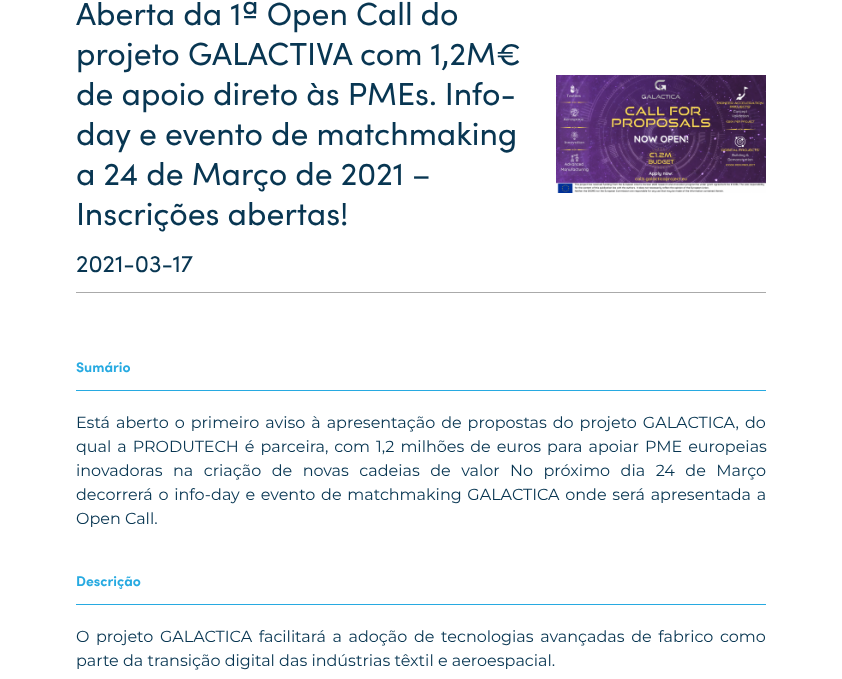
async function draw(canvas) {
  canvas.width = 842
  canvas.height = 679
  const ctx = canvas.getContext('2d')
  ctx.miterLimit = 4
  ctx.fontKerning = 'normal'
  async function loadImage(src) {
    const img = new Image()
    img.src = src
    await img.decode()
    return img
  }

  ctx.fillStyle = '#fff'
  ctx.fillRect(0, 0, 842, 679)
  ctx.font = '32px Sofia'
  ctx.fillStyle = '#083652'
  ctx.fillText('Aberta da 1ª Open Call do', 76, 25)
  ctx.fillText('projeto GALACTIVA com 1,2M€', 76, 65)
  ctx.fillText('de apoio direto às PMEs. Info-', 76, 105)
  ctx.fillText('day e evento de matchmaking', 76, 145)
  ctx.fillText('a 24 de Março de 2021 –', 76, 185)
  ctx.fillText('Inscrições abertas!', 76, 225)
  ctx.font = '24px Sofia'
  ctx.fillText('2021-03-17', 76, 272)
  ctx.drawImage(await loadImage('image0.png'), 556, 75, 210, 118)
  ctx.fillStyle = '#aaa'
  ctx.fillRect(76, 292, 690, 1)
  ctx.font = 'bold 14px Sofia'
  ctx.fillStyle = '#27aae1'
  ctx.fillText('Sumário', 76, 372)
  ctx.fillRect(76, 390, 690, 1)
  ctx.wordSpacing = '1.75px'
  ctx.font = '16px Montserrat'
  ctx.fillStyle = '#083652'
  ctx.fillText('Está aberto o primeiro aviso à apresentação de propostas do projeto GALACTICA, do', 76, 428)
  ctx.fillText('qual a PRODUTECH é parceira, com 1,2 milhões de euros para apoiar PME europeias', 76, 452)
  ctx.wordSpacing = '6.25px'
  ctx.fillText('inovadoras na criação de novas cadeias de valor', 76, 476)
  ctx.fillText('No próximo dia 24 de Março', 510, 476)
  ctx.wordSpacing = '1.5px'
  ctx.fillText('decorrerá o info-day e evento de matchmaking GALACTICA onde será apresentada a', 76, 500)
  ctx.wordSpacing = '0px'
  ctx.fillText('Open Call.', 76, 524)
  ctx.font = 'bold 14px Sofia'
  ctx.fillStyle = '#27aae1'
  ctx.fillText('Descrição', 76, 586)
  ctx.fillRect(76, 604, 690, 1)
  ctx.wordSpacing = '2.4px'
  ctx.font = '16px Montserrat'
  ctx.fillStyle = '#083652'
  ctx.fillText('O projeto GALACTICA facilitará a adoção de tecnologias avançadas de fabrico como', 76, 642)
  ctx.wordSpacing = '0px'
  ctx.fillText('parte da transição digital das indústrias têxtil e aeroespacial.', 76, 666)
}

draw(document.querySelector('canvas'))
